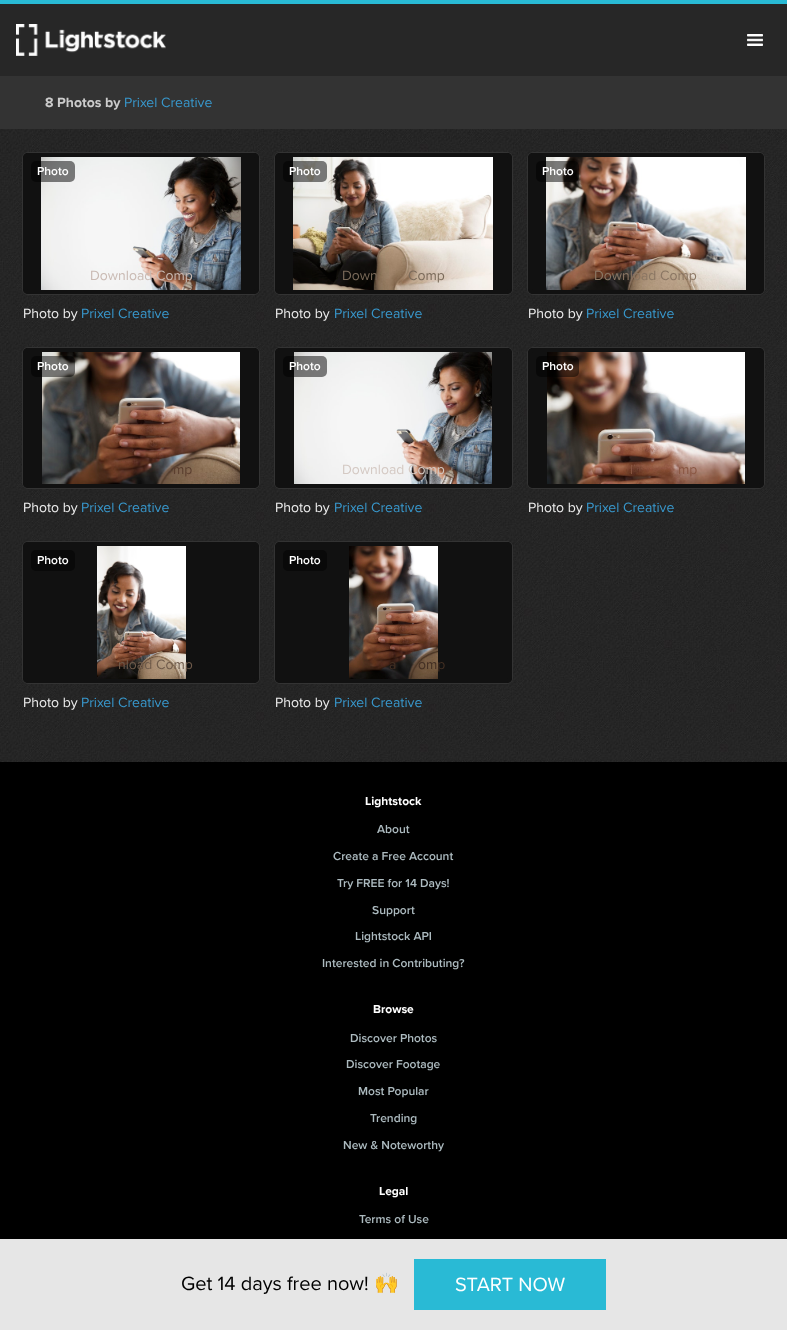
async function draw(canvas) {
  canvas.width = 787
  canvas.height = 1330
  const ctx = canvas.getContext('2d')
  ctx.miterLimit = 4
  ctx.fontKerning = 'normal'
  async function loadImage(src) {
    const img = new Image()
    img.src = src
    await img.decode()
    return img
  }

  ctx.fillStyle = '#fff'
  ctx.fillRect(0, 0, 787, 1330)
  ctx.drawImage(await loadImage('image0.png'), 0, 129, 787, 633)
  ctx.fillStyle = '#272727'
  ctx.fillRect(0, 4, 787, 72)
  ctx.fillStyle = '#29bad5'
  ctx.fillRect(0, 0, 787, 4)
  ctx.drawImage(await loadImage('image1.png'), 16, 24, 150, 32)
  ctx.drawImage(await loadImage('image2.png'), 747, 34, 16, 12)
  ctx.fillStyle = '#333'
  ctx.fillRect(0, 76, 787, 53)
  ctx.font = 'bold 14px Proxima Nova'
  ctx.fillStyle = '#ccc'
  ctx.fillText('8 Photos by', 45, 107)
  ctx.font = '14px Proxima Nova'
  ctx.fillStyle = '#3898cd'
  ctx.fillText('Prixel Creative', 124, 107)
  ctx.beginPath()
  ctx.roundRect(22.5, 152.5, 237, 142, 5.5)
  ctx.strokeStyle = '#333'
  ctx.stroke()
  ctx.fillStyle = '#111'
  ctx.beginPath()
  ctx.roundRect(23, 153, 236, 141, 5)
  ctx.fill()
  ctx.drawImage(await loadImage('image3.png'), 41, 157, 200, 133)
  ctx.beginPath()
  ctx.roundRect(25, 155, 232, 137, 3)
  ctx.strokeStyle = '#111'
  ctx.lineWidth = 4
  ctx.stroke()
  ctx.fillStyle = '#00000080'
  ctx.beginPath()
  ctx.roundRect(31, 161, 44, 21, 5)
  ctx.fill()
  ctx.font = '600 12px Proxima Nova'
  ctx.fillStyle = '#fff'
  ctx.fillText('Photo', 37, 175)
  ctx.font = '14px Proxima Nova'
  ctx.fillStyle = '#c9bab3'
  ctx.fillText('Download Comp', 90, 280)
  ctx.fillStyle = '#eee'
  ctx.fillText('Photo by', 23, 318)
  ctx.fillStyle = '#3898cd'
  ctx.fillText('Prixel Creative', 81, 318)
  ctx.beginPath()
  ctx.roundRect(274.5, 152.5, 238, 142, 5.5)
  ctx.strokeStyle = '#333'
  ctx.lineWidth = 1
  ctx.stroke()
  ctx.fillStyle = '#111'
  ctx.beginPath()
  ctx.roundRect(275, 153, 237, 141, 5)
  ctx.fill()
  ctx.drawImage(await loadImage('image4.png'), 293, 157, 200, 133)
  ctx.beginPath()
  ctx.roundRect(277, 155, 233, 137, 3)
  ctx.strokeStyle = '#111'
  ctx.lineWidth = 4
  ctx.stroke()
  ctx.fillStyle = '#00000080'
  ctx.beginPath()
  ctx.roundRect(283, 161, 44, 21, 5)
  ctx.fill()
  ctx.font = '600 12px Proxima Nova'
  ctx.fillStyle = '#fff'
  ctx.fillText('Photo', 289, 175)
  ctx.font = '14px Proxima Nova'
  ctx.fillStyle = '#7a6a5a'
  ctx.fillText('Down', 342, 280)
  ctx.fillText('Comp', 408, 280)
  ctx.fillStyle = '#eee'
  ctx.fillText('Photo by', 275, 318)
  ctx.fillStyle = '#3898cd'
  ctx.fillText('Prixel Creative', 334, 318)
  ctx.beginPath()
  ctx.roundRect(527.5, 152.5, 237, 142, 5.5)
  ctx.strokeStyle = '#333'
  ctx.lineWidth = 1
  ctx.stroke()
  ctx.fillStyle = '#111'
  ctx.beginPath()
  ctx.roundRect(528, 153, 236, 141, 5)
  ctx.fill()
  ctx.drawImage(await loadImage('image5.png'), 546, 157, 200, 133)
  ctx.beginPath()
  ctx.roundRect(530, 155, 232, 137, 3)
  ctx.strokeStyle = '#111'
  ctx.lineWidth = 4
  ctx.stroke()
  ctx.fillStyle = '#00000080'
  ctx.beginPath()
  ctx.roundRect(536, 161, 43, 21, 5)
  ctx.fill()
  ctx.font = '600 12px Proxima Nova'
  ctx.fillStyle = '#fff'
  ctx.fillText('Photo', 542, 175)
  ctx.font = '14px Proxima Nova'
  ctx.fillStyle = '#8a7663'
  ctx.fillText('Download Comp', 594, 280)
  ctx.fillStyle = '#eee'
  ctx.fillText('Photo by', 528, 318)
  ctx.fillStyle = '#3898cd'
  ctx.fillText('Prixel Creative', 586, 318)
  ctx.beginPath()
  ctx.roundRect(22.5, 347.5, 237, 141, 5.5)
  ctx.strokeStyle = '#333'
  ctx.lineWidth = 1
  ctx.stroke()
  ctx.fillStyle = '#111'
  ctx.beginPath()
  ctx.roundRect(23, 348, 236, 140, 5)
  ctx.fill()
  ctx.drawImage(await loadImage('image6.png'), 42, 352, 198, 132)
  ctx.beginPath()
  ctx.roundRect(25, 350, 232, 136, 3)
  ctx.strokeStyle = '#111'
  ctx.lineWidth = 4
  ctx.stroke()
  ctx.fillStyle = '#00000080'
  ctx.beginPath()
  ctx.roundRect(31, 356, 44, 21, 5)
  ctx.fill()
  ctx.font = '600 12px Proxima Nova'
  ctx.fillStyle = '#fff'
  ctx.fillText('Photo', 37, 370)
  ctx.font = '14px Proxima Nova'
  ctx.fillStyle = '#5a3e2e'
  ctx.fillText('mp', 173, 474)
  ctx.fillStyle = '#eee'
  ctx.fillText('Photo by', 23, 512)
  ctx.fillStyle = '#3898cd'
  ctx.fillText('Prixel Creative', 81, 512)
  ctx.beginPath()
  ctx.roundRect(274.5, 347.5, 238, 141, 5.5)
  ctx.strokeStyle = '#333'
  ctx.lineWidth = 1
  ctx.stroke()
  ctx.fillStyle = '#111'
  ctx.beginPath()
  ctx.roundRect(275, 348, 237, 140, 5)
  ctx.fill()
  ctx.drawImage(await loadImage('image7.png'), 294, 352, 198, 132)
  ctx.beginPath()
  ctx.roundRect(277, 350, 233, 136, 3)
  ctx.strokeStyle = '#111'
  ctx.lineWidth = 4
  ctx.stroke()
  ctx.fillStyle = '#00000080'
  ctx.beginPath()
  ctx.roundRect(283, 356, 44, 21, 5)
  ctx.fill()
  ctx.font = '600 12px Proxima Nova'
  ctx.fillStyle = '#fff'
  ctx.fillText('Photo', 289, 370)
  ctx.font = '14px Proxima Nova'
  ctx.fillStyle = '#d4c9c3'
  ctx.fillText('Download Comp', 342, 474)
  ctx.fillStyle = '#eee'
  ctx.fillText('Photo by', 275, 512)
  ctx.fillStyle = '#3898cd'
  ctx.fillText('Prixel Creative', 334, 512)
  ctx.beginPath()
  ctx.roundRect(527.5, 347.5, 237, 141, 5.5)
  ctx.strokeStyle = '#333'
  ctx.lineWidth = 1
  ctx.stroke()
  ctx.fillStyle = '#111'
  ctx.beginPath()
  ctx.roundRect(528, 348, 236, 140, 5)
  ctx.fill()
  ctx.drawImage(await loadImage('image8.png'), 547, 352, 198, 132)
  ctx.beginPath()
  ctx.roundRect(530, 350, 232, 136, 3)
  ctx.strokeStyle = '#111'
  ctx.lineWidth = 4
  ctx.stroke()
  ctx.fillStyle = '#00000080'
  ctx.beginPath()
  ctx.roundRect(536, 356, 43, 21, 5)
  ctx.fill()
  ctx.font = '600 12px Proxima Nova'
  ctx.fillStyle = '#fff'
  ctx.fillText('Photo', 542, 370)
  ctx.font = '14px Proxima Nova'
  ctx.fillStyle = '#8a5743'
  ctx.fillText('l', 630, 474)
  ctx.fillText('mp', 678, 474)
  ctx.fillStyle = '#eee'
  ctx.fillText('Photo by', 528, 512)
  ctx.fillStyle = '#3898cd'
  ctx.fillText('Prixel Creative', 586, 512)
  ctx.beginPath()
  ctx.roundRect(22.5, 541.5, 237, 142, 5.5)
  ctx.strokeStyle = '#333'
  ctx.lineWidth = 1
  ctx.stroke()
  ctx.fillStyle = '#111'
  ctx.beginPath()
  ctx.roundRect(23, 542, 236, 141, 5)
  ctx.fill()
  ctx.drawImage(await loadImage('image9.png'), 97, 546, 89, 133)
  ctx.beginPath()
  ctx.roundRect(25, 544, 232, 137, 3)
  ctx.strokeStyle = '#111'
  ctx.lineWidth = 4
  ctx.stroke()
  ctx.fillStyle = '#090909'
  ctx.beginPath()
  ctx.roundRect(31, 550, 44, 21, 5)
  ctx.fill()
  ctx.font = '600 12px Proxima Nova'
  ctx.fillStyle = '#fff'
  ctx.fillText('Photo', 37, 564)
  ctx.font = '14px Proxima Nova'
  ctx.fillStyle = '#6e5a4a'
  ctx.fillText('nload Comp', 118, 669)
  ctx.fillStyle = '#eee'
  ctx.fillText('Photo by', 23, 707)
  ctx.fillStyle = '#3898cd'
  ctx.fillText('Prixel Creative', 81, 707)
  ctx.beginPath()
  ctx.roundRect(274.5, 541.5, 238, 142, 5.5)
  ctx.strokeStyle = '#333'
  ctx.lineWidth = 1
  ctx.stroke()
  ctx.fillStyle = '#111'
  ctx.beginPath()
  ctx.roundRect(275, 542, 237, 141, 5)
  ctx.fill()
  ctx.drawImage(await loadImage('image10.png'), 349, 546, 89, 133)
  ctx.beginPath()
  ctx.roundRect(277, 544, 233, 137, 3)
  ctx.strokeStyle = '#111'
  ctx.lineWidth = 4
  ctx.stroke()
  ctx.fillStyle = '#090909'
  ctx.beginPath()
  ctx.roundRect(283, 550, 44, 21, 5)
  ctx.fill()
  ctx.font = '600 12px Proxima Nova'
  ctx.fillStyle = '#fff'
  ctx.fillText('Photo', 289, 564)
  ctx.font = '14px Proxima Nova'
  ctx.fillStyle = '#432f23'
  ctx.fillText('a', 389, 669)
  ctx.fillText('omp', 418, 669)
  ctx.fillStyle = '#eee'
  ctx.fillText('Photo by', 275, 707)
  ctx.fillStyle = '#3898cd'
  ctx.fillText('Prixel Creative', 334, 707)
  ctx.fillStyle = '#000'
  ctx.fillRect(0, 762, 787, 568)
  ctx.font = 'bold 12px Proxima Nova'
  ctx.fillStyle = '#fff'
  ctx.fillText('Lightstock', 365, 805)
  ctx.font = '600 12px Proxima Nova'
  ctx.fillStyle = '#acbabf'
  ctx.fillText('About', 377, 833)
  ctx.fillText('Create a Free Account', 333, 860)
  ctx.fillText('Try FREE for 14 Days!', 337, 887)
  ctx.fillText('Support', 372, 914)
  ctx.fillText('Lightstock API', 355, 940)
  ctx.fillText('Interested in Contributing?', 322, 967)
  ctx.font = 'bold 12px Proxima Nova'
  ctx.fillStyle = '#fff'
  ctx.fillText('Browse', 373, 1013)
  ctx.font = '600 12px Proxima Nova'
  ctx.fillStyle = '#acbabf'
  ctx.fillText('Discover Photos', 350, 1042)
  ctx.fillText('Discover Footage', 346, 1068)
  ctx.fillText('Most Popular', 358, 1095)
  ctx.fillText('Trending', 370, 1122)
  ctx.fillText('New & Noteworthy', 343, 1149)
  ctx.font = 'bold 12px Proxima Nova'
  ctx.fillStyle = '#fff'
  ctx.fillText('Legal', 379, 1195)
  ctx.font = '600 12px Proxima Nova'
  ctx.fillStyle = '#acbabf'
  ctx.fillText('Terms of Use', 359, 1223)
  ctx.fillStyle = '#ffffffe6'
  ctx.fillRect(0, 1239, 787, 91)
  ctx.font = '20px Proxima Nova'
  ctx.fillStyle = '#000'
  ctx.fillText('Get 14 days free now!', 181, 1290)
  ctx.font = '20px Noto Color Emoji'
  ctx.fillText('🙌', 374, 1290)
  ctx.fillStyle = '#29bad5'
  ctx.fillRect(414, 1259, 192, 51)
  ctx.font = '20px Proxima Nova'
  ctx.fillStyle = '#fff'
  ctx.fillText('START NOW', 455, 1291)
}

draw(document.querySelector('canvas'))
